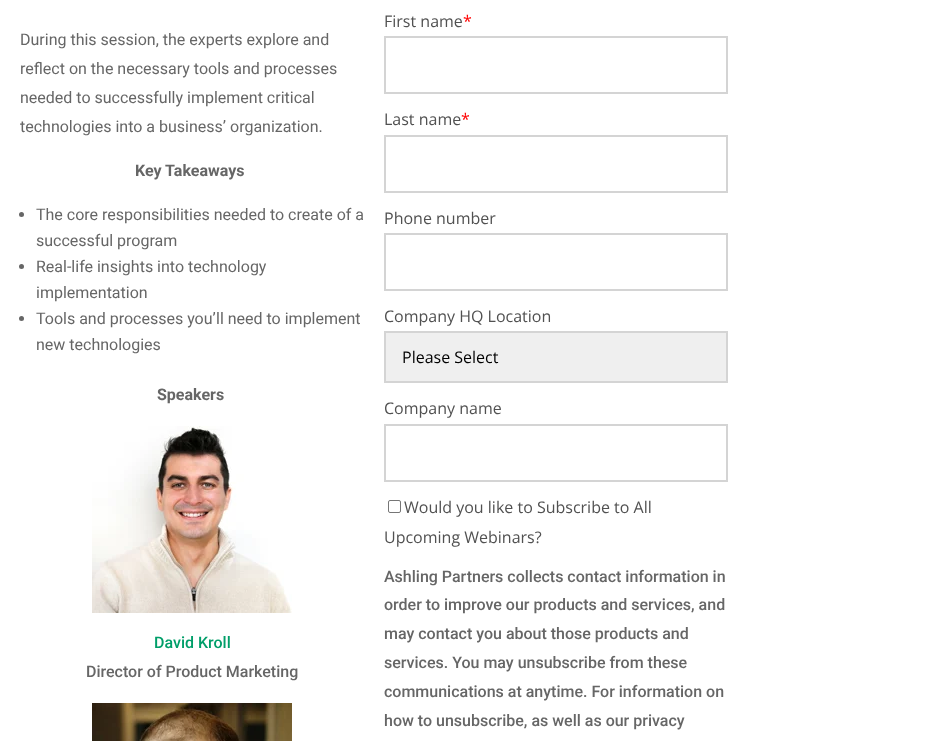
async function draw(canvas) {
  canvas.width = 935
  canvas.height = 741
  const ctx = canvas.getContext('2d')
  ctx.miterLimit = 4
  ctx.fontKerning = 'normal'
  async function loadImage(src) {
    const img = new Image()
    img.src = src
    await img.decode()
    return img
  }

  ctx.fillStyle = '#fff'
  ctx.fillRect(0, 0, 935, 741)
  ctx.font = '16px Roboto'
  ctx.fillStyle = '#666'
  ctx.fillText('During this session, the experts explore and', 20, 45)
  ctx.fillText('reflect on the necessary tools and processes', 20, 74)
  ctx.fillText('needed to successfully implement critical', 20, 103)
  ctx.fillText('technologies into a business’ organization.', 20, 132)
  ctx.font = 'bold 16px Roboto'
  ctx.fillText('Key Takeaways', 135, 176)
  ctx.beginPath()
  ctx.arc(21.5, 214.5, 2.5, 0, 2 * Math.PI)
  ctx.fill()
  ctx.font = '16px Roboto'
  ctx.fillText('The core responsibilities needed to create of a', 36, 220)
  ctx.fillText('successful program', 36, 246)
  ctx.beginPath()
  ctx.arc(21.5, 266.5, 2.5, 0, 2 * Math.PI)
  ctx.fill()
  ctx.fillText('Real-life insights into technology', 36, 272)
  ctx.fillText('implementation', 36, 298)
  ctx.beginPath()
  ctx.arc(21.5, 318.5, 2.5, 0, 2 * Math.PI)
  ctx.fill()
  ctx.fillText('Tools and processes you’ll need to implement', 36, 324)
  ctx.fillText('new technologies', 36, 350)
  ctx.font = 'bold 16px Roboto'
  ctx.fillText('Speakers', 157, 400)
  ctx.drawImage(await loadImage('image0.png'), 92, 426, 200, 187)
  ctx.font = '500 16px Roboto'
  ctx.fillStyle = '#009e69'
  ctx.fillText('David Kroll', 154, 648)
  ctx.fillStyle = '#666'
  ctx.fillText('Director of Product Marketing', 86, 677)
  ctx.drawImage(await loadImage('image1.png'), 92, 703, 200, 38)
  ctx.font = '16px Open Sans'
  ctx.fillStyle = '#515151'
  ctx.fillText('First name', 384, 27)
  ctx.fillStyle = '#f00'
  ctx.fillText('*', 463, 27)
  ctx.strokeStyle = '#d4d4d4'
  ctx.lineWidth = 2
  ctx.strokeRect(385, 37, 342, 56)
  ctx.fillStyle = '#515151'
  ctx.fillText('Last name', 384, 125)
  ctx.fillStyle = '#f00'
  ctx.fillText('*', 461, 125)
  ctx.strokeRect(385, 136, 342, 56)
  ctx.fillStyle = '#515151'
  ctx.fillText('Phone number', 384, 224)
  ctx.strokeRect(385, 234, 342, 56)
  ctx.fillText('Company HQ Location', 384, 322)
  ctx.fillStyle = '#efefef'
  ctx.beginPath()
  ctx.rect(385, 332, 342, 50)
  ctx.fill()
  ctx.stroke()
  ctx.fillStyle = '#000'
  ctx.fillText('Please Select', 402, 363)
  ctx.fillStyle = '#515151'
  ctx.fillText('Company name', 384, 414)
  ctx.strokeRect(385, 425, 342, 56)
  ctx.beginPath()
  ctx.roundRect(388.5, 500.5, 12, 12, 1.5)
  ctx.strokeStyle = '#767676'
  ctx.lineWidth = 1
  ctx.stroke()
  ctx.fillText('Would you like to Subscribe to All', 404, 513)
  ctx.fillText('Upcoming Webinars?', 384, 543)
  ctx.font = '500 16px Roboto'
  ctx.fillStyle = '#666'
  ctx.fillText('Ashling Partners collects contact information in', 384, 582)
  ctx.fillText('order to improve our products and services, and', 384, 610)
  ctx.fillText('may contact you about those products and', 384, 639)
  ctx.fillText('services. You may unsubscribe from these', 384, 668)
  ctx.fillText('communications at anytime. For information on', 384, 697)
  ctx.fillText('how to unsubscribe, as well as our privacy', 384, 726)
}

draw(document.querySelector('canvas'))
